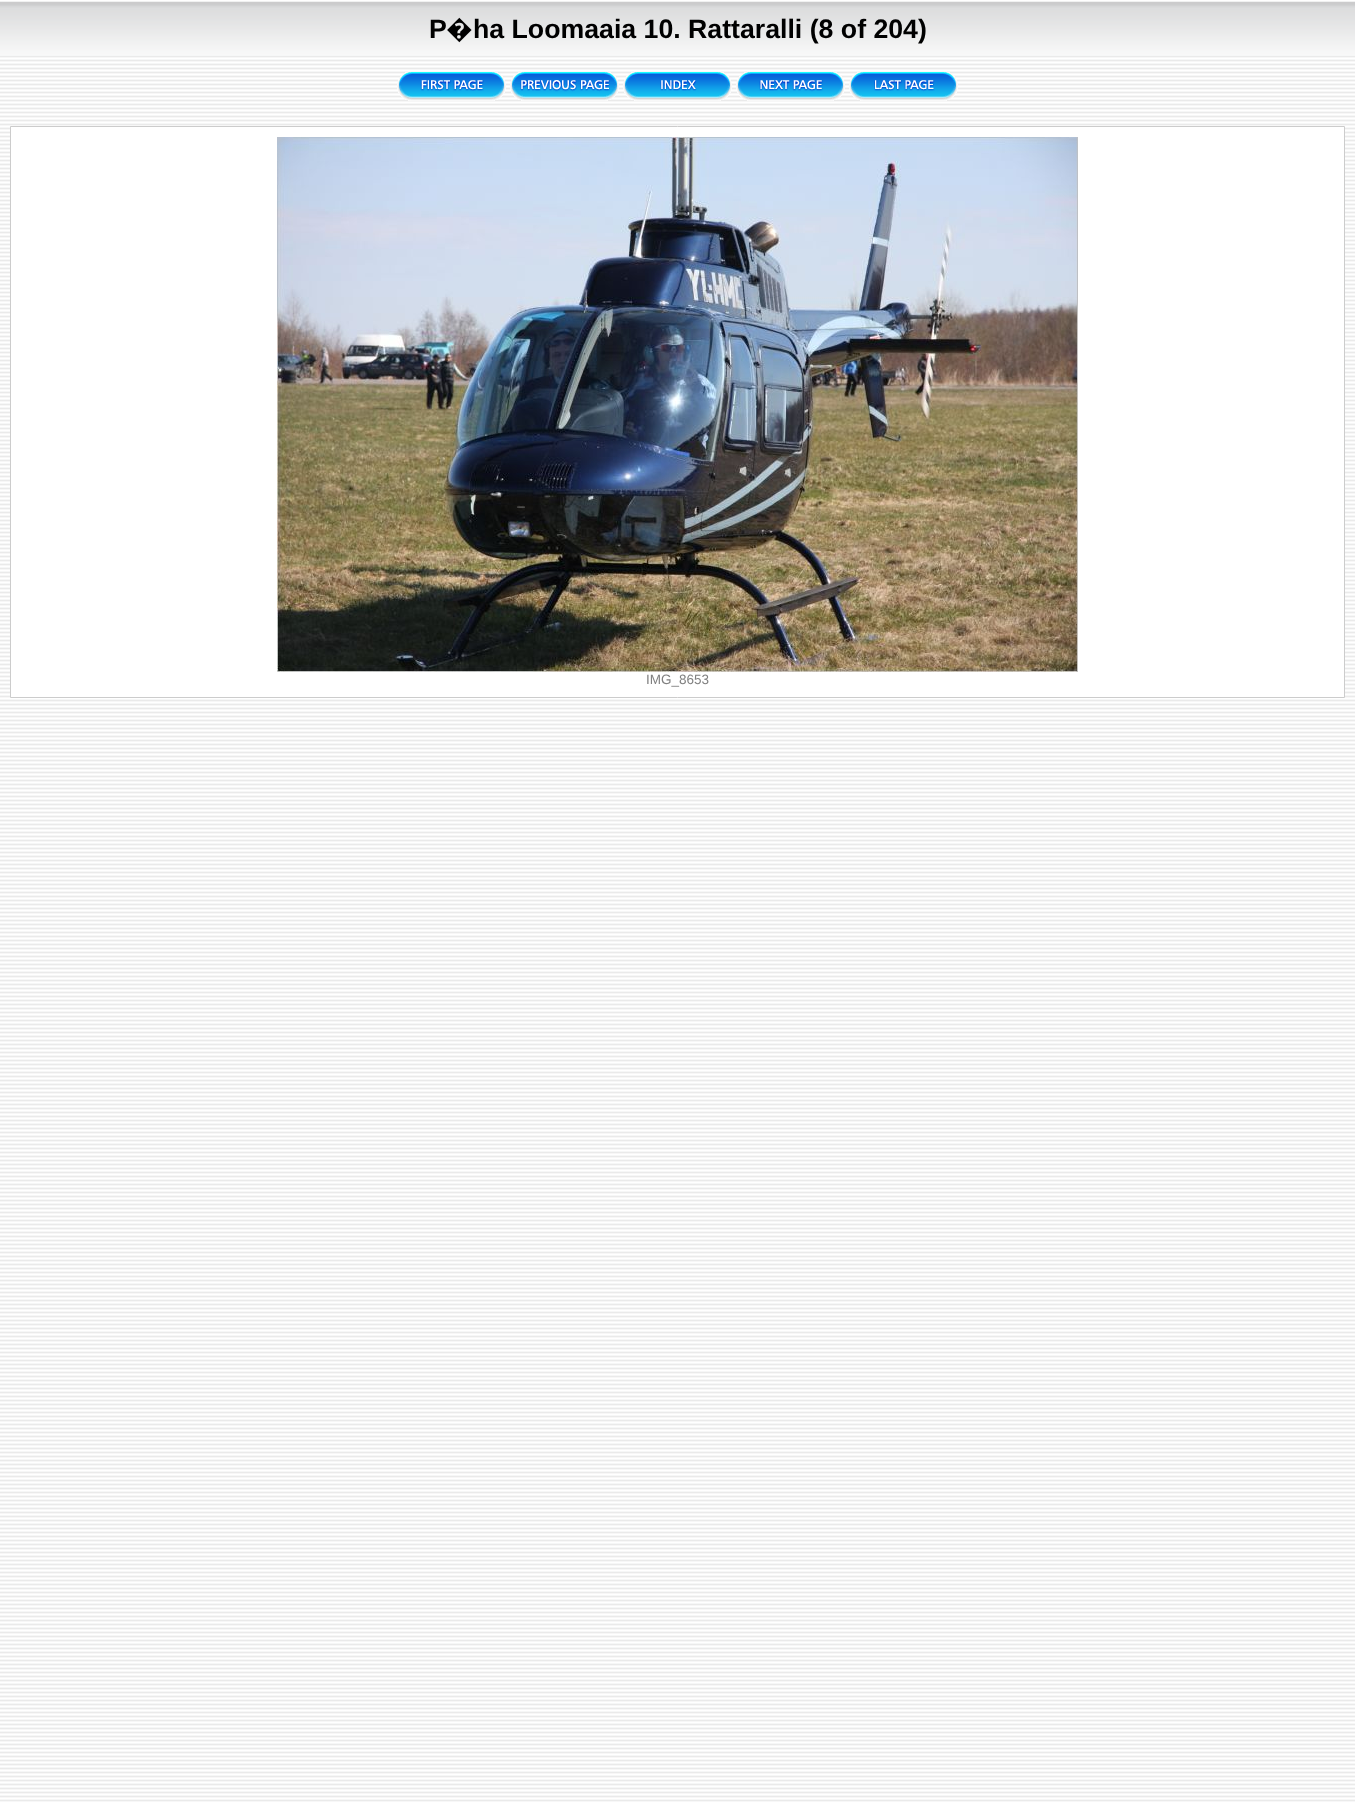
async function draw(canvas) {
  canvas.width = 1355
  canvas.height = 1802
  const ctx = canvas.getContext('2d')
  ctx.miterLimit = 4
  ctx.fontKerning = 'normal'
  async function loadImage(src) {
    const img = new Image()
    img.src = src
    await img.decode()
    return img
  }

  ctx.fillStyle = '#fff'
  ctx.fillRect(0, 0, 1355, 1802)
  ctx.drawImage(await loadImage('image0.png'), 0, 55, 1355, 1747)
  ctx.drawImage(await loadImage('image1.png'), 0, 0, 1355, 55)
  ctx.font = 'bold 26.7px Liberation Sans'
  ctx.fillStyle = '#000'
  ctx.fillText('P', 429, 38)
  ctx.font = 'bold 26.7px Noto Sans'
  ctx.fillText('�', 446, 38)
  ctx.font = 'bold 26.7px Liberation Sans'
  ctx.fillText('ha Loomaaia 10. Rattaralli (8 of 204)', 473, 38)
  ctx.drawImage(await loadImage('image2.png'), 397, 71, 109, 30)
  ctx.drawImage(await loadImage('image3.png'), 510, 71, 109, 30)
  ctx.drawImage(await loadImage('image4.png'), 623, 71, 109, 30)
  ctx.drawImage(await loadImage('image5.png'), 736, 71, 109, 30)
  ctx.drawImage(await loadImage('image6.png'), 849, 71, 109, 30)
  ctx.fillStyle = '#fff'
  ctx.beginPath()
  ctx.rect(10.5, 126.5, 1334, 571)
  ctx.fill()
  ctx.strokeStyle = '#ccc'
  ctx.stroke()
  ctx.drawImage(await loadImage('image7.png'), 277, 137, 801, 535)
  ctx.font = '13.5px Liberation Sans'
  ctx.fillStyle = '#808080'
  ctx.fillText('IMG_8653', 646, 684)
}

draw(document.querySelector('canvas'))
